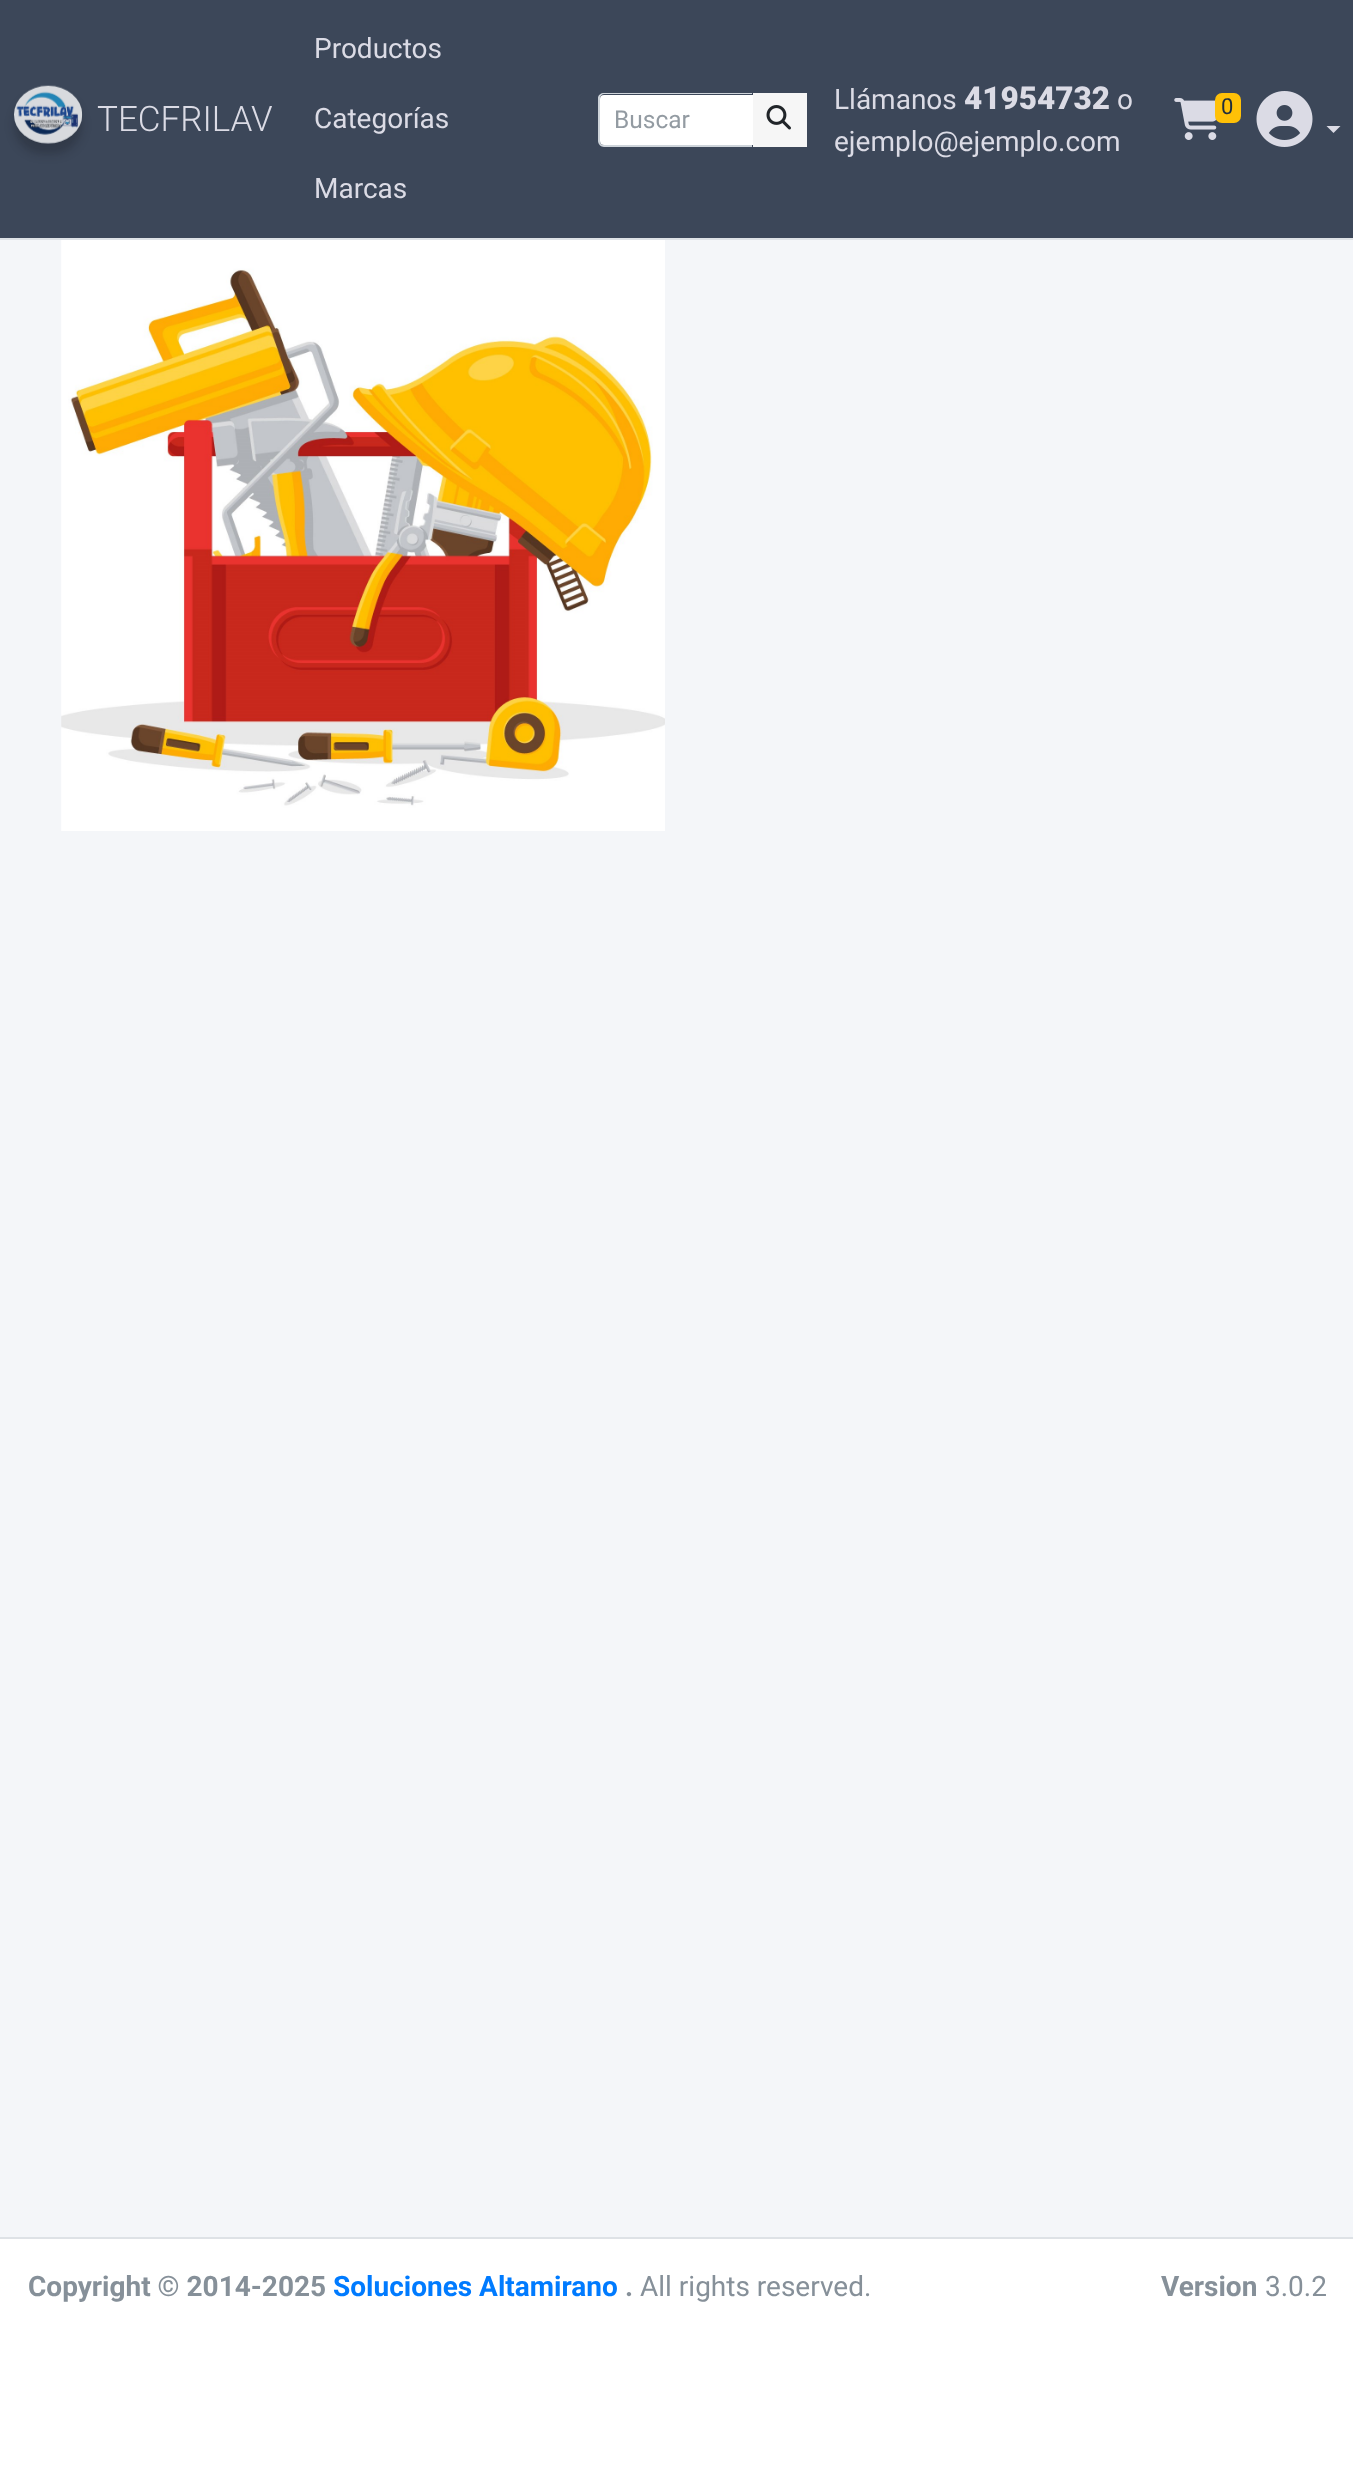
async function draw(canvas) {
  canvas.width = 1353
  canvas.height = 2475
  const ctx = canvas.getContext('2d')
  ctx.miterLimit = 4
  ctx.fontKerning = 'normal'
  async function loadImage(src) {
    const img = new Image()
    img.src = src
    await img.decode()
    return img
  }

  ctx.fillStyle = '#fff'
  ctx.fillRect(0, 0, 1353, 2475)
  ctx.fillStyle = '#3c4759'
  ctx.fillRect(0, 0, 1353, 238)
  ctx.fillStyle = '#dee2e6'
  ctx.fillRect(0, 238, 1353, 2)
  ctx.save()
  ctx.beginPath()
  ctx.moveTo(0, 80)
  ctx.lineTo(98, 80)
  ctx.lineTo(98, 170)
  ctx.lineTo(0, 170)
  ctx.closePath()
  ctx.moveTo(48, 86)
  ctx.bezierCurveTo(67, 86, 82, 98.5, 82, 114.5)
  ctx.bezierCurveTo(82, 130.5, 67, 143.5, 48, 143.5)
  ctx.bezierCurveTo(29.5, 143.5, 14, 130.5, 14, 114.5)
  ctx.bezierCurveTo(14, 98.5, 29.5, 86, 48, 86)
  ctx.closePath()
  ctx.clip('evenodd')
  ctx.fillStyle = '#0c0e123b'
  ctx.filter = 'blur(5px)'
  ctx.beginPath()
  ctx.roundRect(14, 96, 68, 58, 29)
  ctx.fill()
  ctx.filter = 'none'
  ctx.restore()
  ctx.drawImage(await loadImage('image0.png'), 14, 85, 69, 59)
  ctx.font = '300 35px Roboto'
  ctx.fillStyle = '#dbdbe5'
  ctx.fillText('TECFRILAV', 97, 131)
  ctx.font = '28px Roboto'
  ctx.fillText('Productos', 314, 58)
  ctx.fillText('Categorías', 314, 128)
  ctx.fillText('Marcas', 314, 198)
  ctx.fillStyle = '#fff'
  ctx.beginPath()
  ctx.roundRect(600, 95, 153, 50, [4, 0, 0, 4])
  ctx.fill()
  ctx.fillStyle = '#ced4da'
  ctx.beginPath()
  ctx.moveTo(604, 93)
  ctx.lineTo(752, 93)
  ctx.lineTo(752, 147)
  ctx.lineTo(604, 147)
  ctx.bezierCurveTo(601, 147, 598, 144, 598, 141)
  ctx.lineTo(598, 98)
  ctx.bezierCurveTo(598, 95, 601, 93, 604, 93)
  ctx.closePath()
  ctx.moveTo(604, 94)
  ctx.lineTo(752, 94)
  ctx.lineTo(752, 145)
  ctx.lineTo(604, 145)
  ctx.bezierCurveTo(602, 145, 600, 144, 600, 141)
  ctx.lineTo(600, 98)
  ctx.bezierCurveTo(600, 96, 602, 94, 604, 94)
  ctx.closePath()
  ctx.fill('evenodd')
  ctx.font = '24.5px Roboto'
  ctx.fillStyle = '#939ba2'
  ctx.fillText('Buscar', 614, 128)
  ctx.fillStyle = '#f6f6f6'
  ctx.fillRect(753, 93, 54, 54)
  ctx.drawImage(await loadImage('image1.png'), 766, 105, 25, 25)
  ctx.font = '28px Roboto'
  ctx.fillStyle = '#dbdbe5'
  ctx.fillText('Llámanos', 834, 109)
  ctx.font = '900 31.5px Roboto'
  ctx.fillText('41954732', 964, 109)
  ctx.font = '28px Roboto'
  ctx.fillText('o', 1117, 109)
  ctx.fillText('ejemplo@ejemplo.com', 834, 151)
  ctx.drawImage(await loadImage('image2.png'), 1174, 98, 43, 42)
  ctx.fillStyle = '#ffc107'
  ctx.beginPath()
  ctx.roundRect(1215, 93, 26, 30, 7)
  ctx.fill()
  ctx.font = '22px Roboto'
  ctx.fillStyle = '#1f2d3d'
  ctx.fillText('0', 1221, 114)
  ctx.drawImage(await loadImage('image3.png'), 1256, 91, 57, 56)
  ctx.fillStyle = '#dbdbe5'
  ctx.beginPath()
  ctx.moveTo(1326.5, 126)
  ctx.lineTo(1340.5, 126)
  ctx.lineTo(1333.5, 133)
  ctx.closePath()
  ctx.fill()
  ctx.fillStyle = '#f4f6f9'
  ctx.fillRect(0, 240, 1353, 1997)
  ctx.drawImage(await loadImage('image4.png'), 61, 240, 604, 591)
  ctx.fillStyle = '#dee2e6'
  ctx.fillRect(0, 2237, 1353, 2)
  ctx.font = 'bold 28px Roboto'
  ctx.fillStyle = '#869099'
  ctx.fillText('Copyright © 2014-2025', 28, 2296)
  ctx.fillStyle = '#007bff'
  ctx.fillText('Soluciones Altamirano', 333, 2296)
  ctx.fillStyle = '#869099'
  ctx.fillText('.', 625, 2296)
  ctx.font = '28px Roboto'
  ctx.fillText('All rights reserved.', 640, 2296)
  ctx.font = 'bold 28px Roboto'
  ctx.fillText('Version', 1161, 2296)
  ctx.font = '28px Roboto'
  ctx.fillText('3.0.2', 1265, 2296)
}

draw(document.querySelector('canvas'))
